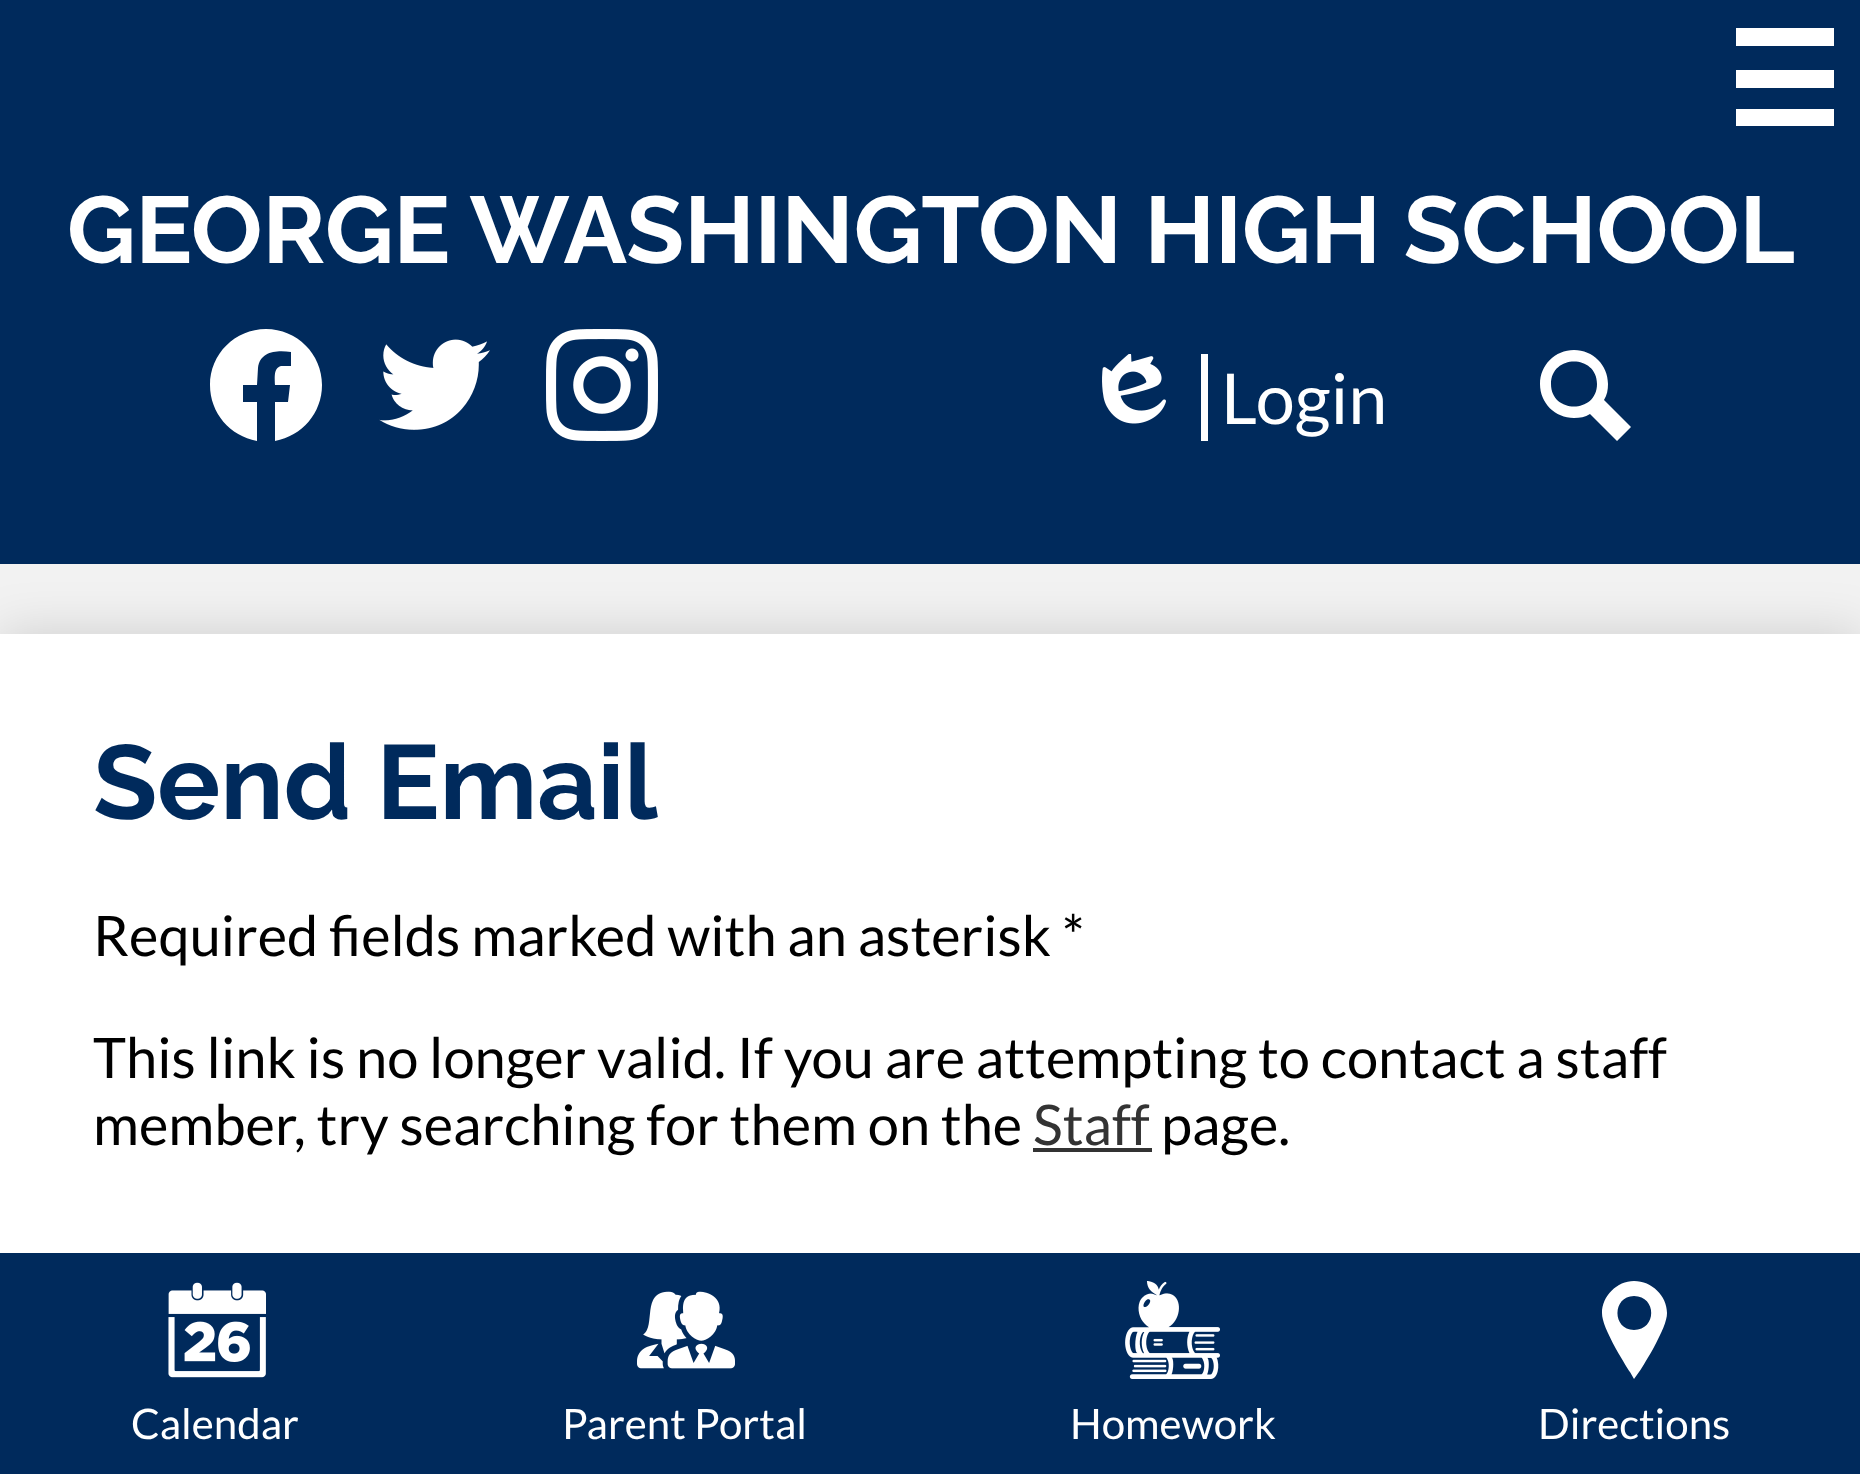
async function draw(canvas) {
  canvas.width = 1860
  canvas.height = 1474
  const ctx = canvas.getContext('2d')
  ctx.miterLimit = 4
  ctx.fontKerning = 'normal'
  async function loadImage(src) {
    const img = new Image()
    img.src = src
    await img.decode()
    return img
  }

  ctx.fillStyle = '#f2f2f2'
  ctx.fillRect(0, 0, 1860, 1474)
  ctx.fillStyle = '#00000026'
  ctx.filter = 'blur(26px)'
  ctx.beginPath()
  ctx.rect(0, 634, 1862, 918)
  ctx.fill()
  ctx.filter = 'none'
  ctx.fillStyle = '#002a5c'
  ctx.fillRect(0, 0, 1860, 564)
  ctx.fillStyle = '#fff'
  ctx.fillRect(1736, 28, 98, 18)
  ctx.fillRect(1736, 70, 98, 18)
  ctx.fillRect(1736, 109, 98, 17)
  ctx.font = 'bold 94.5px Raleway'
  ctx.fillText('GEORGE WASHINGTON HIGH SCHOOL', 67, 263)
  ctx.beginPath()
  ctx.moveTo(322, 385)
  ctx.bezierCurveTo(322, 354, 297, 329, 266, 329)
  ctx.bezierCurveTo(235, 329, 210, 354, 210, 385)
  ctx.bezierCurveTo(210, 413, 230, 436, 257, 441)
  ctx.lineTo(257, 402)
  ctx.lineTo(243, 402)
  ctx.lineTo(243, 385)
  ctx.lineTo(257, 385)
  ctx.lineTo(258, 368)
  ctx.bezierCurveTo(260, 351, 277, 350, 291, 352)
  ctx.lineTo(291, 366)
  ctx.lineTo(281, 366)
  ctx.bezierCurveTo(273, 368, 275, 379, 275, 385)
  ctx.lineTo(290, 385)
  ctx.lineTo(288, 402)
  ctx.lineTo(275, 402)
  ctx.lineTo(275, 441)
  ctx.bezierCurveTo(302, 436, 322, 413, 322, 385)
  ctx.closePath()
  ctx.fill()
  ctx.drawImage(await loadImage('image0.png'), 379, 339, 111, 91)
  ctx.drawImage(await loadImage('image1.png'), 546, 329, 112, 112)
  ctx.fillRect(1201, 354, 7, 87)
  ctx.drawImage(await loadImage('image2.png'), 1102, 354, 64, 70)
  ctx.font = '70px Lato'
  ctx.fillText('Login', 1221, 424)
  ctx.beginPath()
  ctx.moveTo(1631, 427)
  ctx.lineTo(1604, 400)
  ctx.bezierCurveTo(1607, 395, 1608, 390, 1608, 384)
  ctx.bezierCurveTo(1608, 365, 1593, 350, 1574, 350)
  ctx.bezierCurveTo(1555, 350, 1540, 365, 1540, 384)
  ctx.bezierCurveTo(1540, 403, 1555, 418, 1574, 418)
  ctx.bezierCurveTo(1580, 418, 1585, 417, 1590, 414)
  ctx.lineTo(1617, 441)
  ctx.closePath()
  ctx.moveTo(1551, 384)
  ctx.bezierCurveTo(1551, 354, 1597, 354, 1597, 384)
  ctx.bezierCurveTo(1597, 414, 1551, 414, 1551, 384)
  ctx.closePath()
  ctx.fill()
  ctx.fillRect(0, 634, 1860, 619)
  ctx.font = 'bold 105px Raleway'
  ctx.fillStyle = '#002a5c'
  ctx.fillText('Send Email', 93, 819)
  ctx.font = '56px Lato'
  ctx.fillStyle = '#000'
  ctx.fillText('Required fields marked with an asterisk *', 93, 956)
  ctx.fillText('This link is no longer valid. If you are attempting to contact a staff', 93, 1078)
  ctx.fillText('member, try searching for them on the', 93, 1145)
  ctx.fillStyle = '#333'
  ctx.fillText('Staff', 1033, 1145)
  ctx.fillRect(1033, 1148, 119, 4)
  ctx.fillStyle = '#000'
  ctx.fillText('page.', 1161, 1145)
  ctx.fillStyle = '#002a5c'
  ctx.fillRect(0, 1253, 1860, 221)
  ctx.drawImage(await loadImage('image3.png'), 168, 1282, 98, 96)
  ctx.font = '42px Lato'
  ctx.fillStyle = '#fff'
  ctx.fillText('Calendar', 131, 1439)
  ctx.drawImage(await loadImage('image4.png'), 637, 1291, 98, 78)
  ctx.fillText('Parent Portal', 562, 1439)
  ctx.drawImage(await loadImage('image5.png'), 1125, 1281, 95, 98)
  ctx.fillText('Homework', 1070, 1439)
  ctx.beginPath()
  ctx.moveTo(1634, 1281)
  ctx.bezierCurveTo(1617, 1281, 1602, 1296, 1602, 1313)
  ctx.bezierCurveTo(1602, 1321, 1607, 1332, 1616, 1349)
  ctx.bezierCurveTo(1623, 1361, 1629, 1371, 1630, 1372)
  ctx.lineTo(1634, 1379)
  ctx.lineTo(1639, 1372)
  ctx.bezierCurveTo(1640, 1371, 1646, 1361, 1653, 1349)
  ctx.bezierCurveTo(1662, 1332, 1667, 1321, 1667, 1313)
  ctx.bezierCurveTo(1667, 1296, 1652, 1281, 1634, 1281)
  ctx.closePath()
  ctx.moveTo(1634, 1330)
  ctx.bezierCurveTo(1612, 1330, 1612, 1296, 1634, 1296)
  ctx.bezierCurveTo(1657, 1296, 1657, 1330, 1634, 1330)
  ctx.closePath()
  ctx.fill()
  ctx.fillText('Directions', 1538, 1439)
}

draw(document.querySelector('canvas'))
